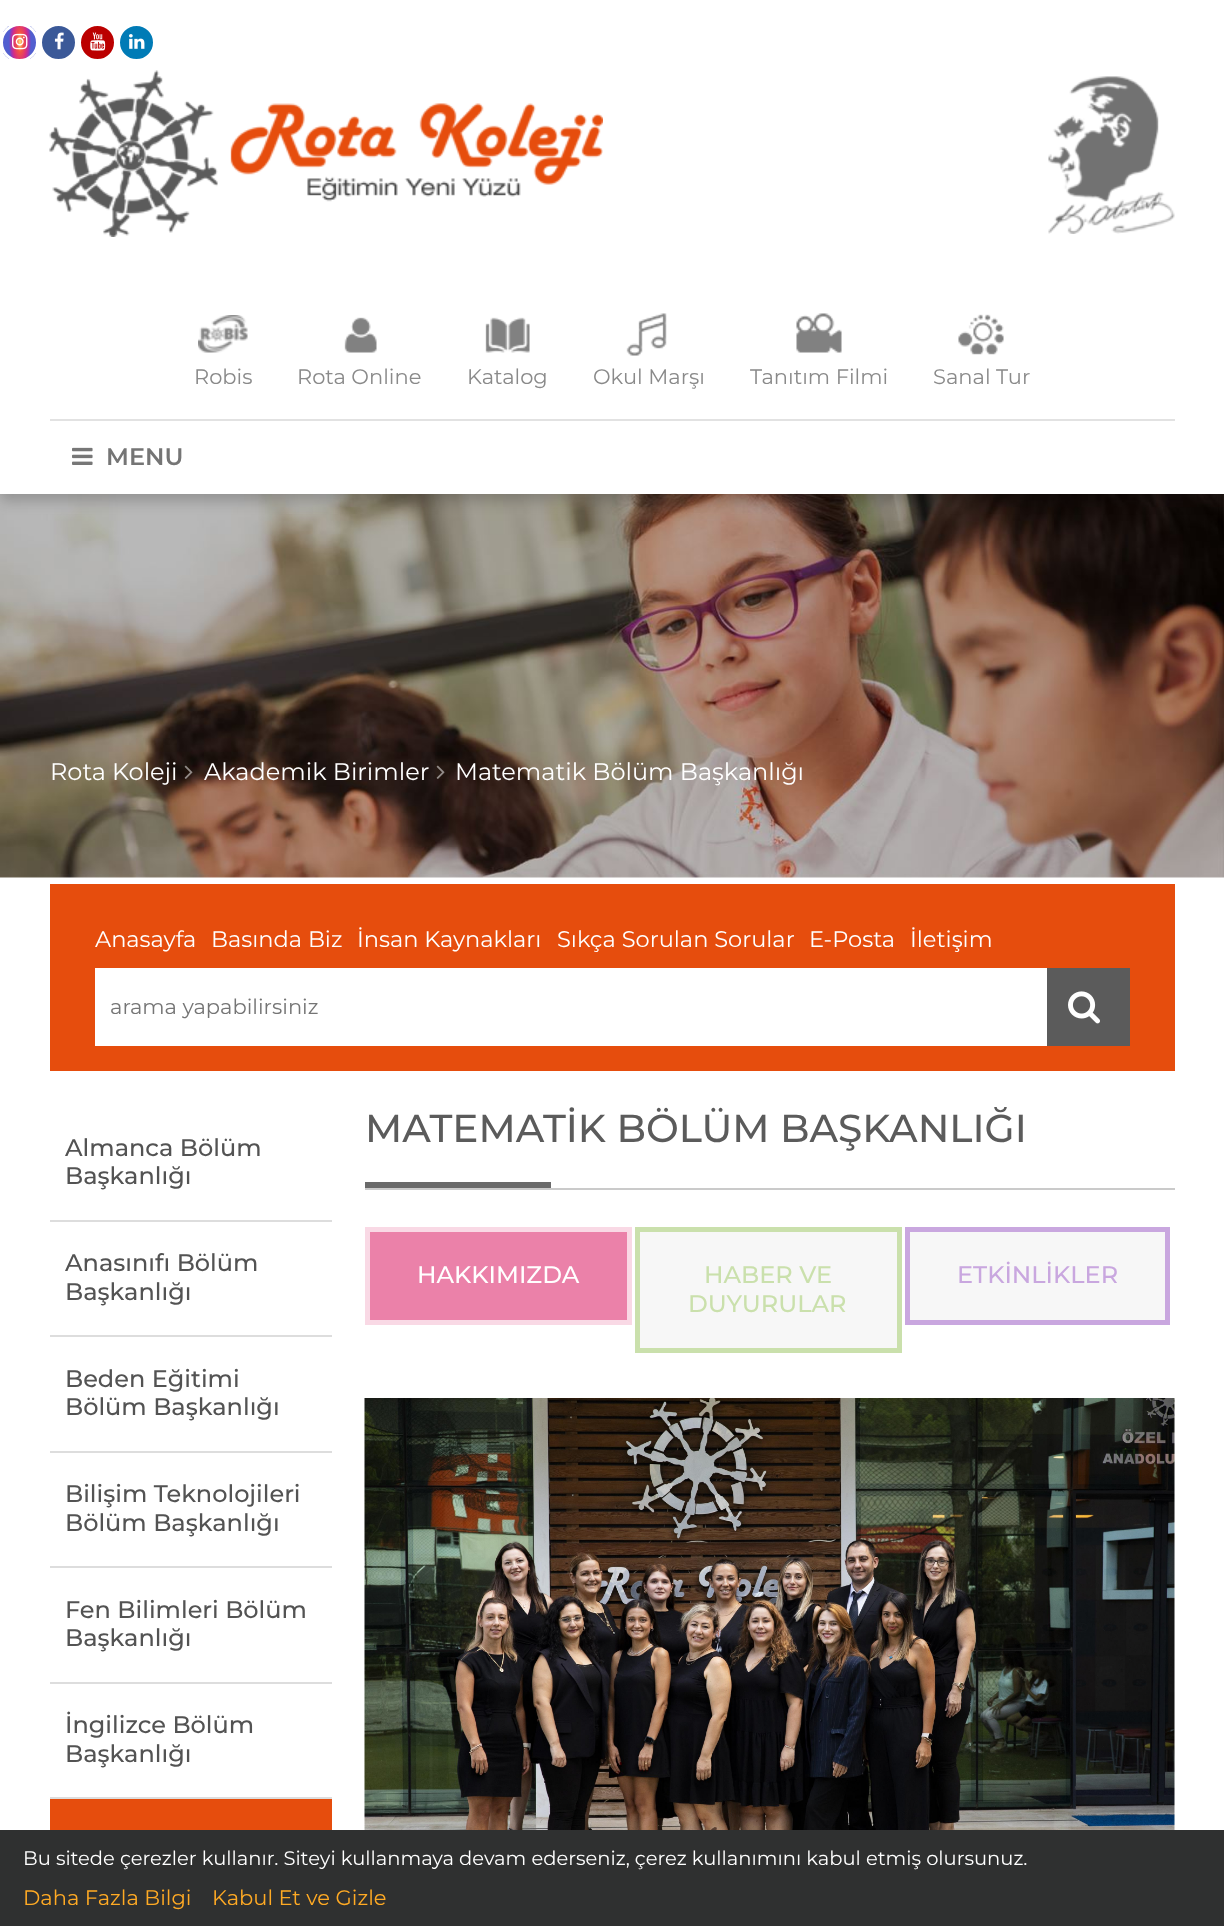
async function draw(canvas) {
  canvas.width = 1224
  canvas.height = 1926
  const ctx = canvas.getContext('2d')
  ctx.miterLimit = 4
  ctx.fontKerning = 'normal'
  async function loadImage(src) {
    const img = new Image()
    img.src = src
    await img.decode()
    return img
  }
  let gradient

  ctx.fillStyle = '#fff'
  ctx.fillRect(0, 0, 1224, 1926)
  ctx.drawImage(await loadImage('image13.png'), 0, 494, 1224, 384)
  ctx.fillStyle = '#00000033'
  ctx.filter = 'blur(7px)'
  ctx.beginPath()
  ctx.rect(0, 8, 1224, 493)
  ctx.fill()
  ctx.filter = 'none'
  ctx.fillStyle = '#fff'
  ctx.fillRect(0, 0, 1224, 494)
  ctx.save()
  ctx.beginPath()
  ctx.roundRect(0, 23, 39, 39, 19.5)
  ctx.clip()
  gradient = ctx.createRadialGradient(20, 14, 0, 20, 14, 11)
  gradient.addColorStop(0.04, '#fed373')
  gradient.addColorStop(0.3, '#f15245')
  gradient.addColorStop(0.62, '#d92e7f')
  gradient.addColorStop(0.85, '#9b36b7')
  gradient.addColorStop(1, '#515ecf')
  ctx.fillStyle = gradient
  ctx.beginPath()
  ctx.rect(3, 26, 33, 33)
  ctx.save()
  ctx.clip()
  ctx.scale(1, 33 / 11)
  ctx.fillRect(0, 0, 1224, 642)
  ctx.restore()
  ctx.restore()
  ctx.beginPath()
  ctx.arc(19.5, 42.5, 18, 0, 2 * Math.PI)
  ctx.strokeStyle = '#fff'
  ctx.lineWidth = 3
  ctx.stroke()
  ctx.drawImage(await loadImage('image0.png'), 12, 33, 16, 17)
  ctx.fillStyle = '#3b5998'
  ctx.beginPath()
  ctx.arc(58.5, 42.5, 18, 0, 2 * Math.PI)
  ctx.fill()
  ctx.stroke()
  ctx.drawImage(await loadImage('image1.png'), 54, 32, 10, 18)
  ctx.fillStyle = '#b00'
  ctx.beginPath()
  ctx.arc(97.5, 42.5, 18, 0, 2 * Math.PI)
  ctx.fill()
  ctx.stroke()
  ctx.drawImage(await loadImage('image2.png'), 90, 32, 16, 19)
  ctx.fillStyle = '#007bb6'
  ctx.beginPath()
  ctx.arc(136.5, 42.5, 18, 0, 2 * Math.PI)
  ctx.fill()
  ctx.stroke()
  ctx.drawImage(await loadImage('image3.png'), 129, 34, 16, 15)
  ctx.fillStyle = '#e2e2e2'
  ctx.fillRect(50, 419, 1125, 2)
  ctx.drawImage(await loadImage('image4.png'), 49, 70, 554, 167)
  ctx.drawImage(await loadImage('image5.png'), 1048, 76, 127, 158)
  ctx.drawImage(await loadImage('image6.png'), 198, 315, 50, 38)
  ctx.font = '21px Montserrat'
  ctx.fillStyle = '#8a8a8a'
  ctx.fillText('Robis', 194, 384)
  ctx.drawImage(await loadImage('image7.png'), 344, 317, 33, 36)
  ctx.fillText('Rota Online', 297, 384)
  ctx.drawImage(await loadImage('image8.png'), 485, 317, 45, 36)
  ctx.fillText('Katalog', 467, 384)
  ctx.drawImage(await loadImage('image9.png'), 626, 313, 41, 43)
  ctx.fillText('Okul Marşı', 593, 384)
  ctx.drawImage(await loadImage('image10.png'), 796, 313, 46, 40)
  ctx.fillText('Tanıtım Filmi', 750, 384)
  ctx.drawImage(await loadImage('image11.png'), 958, 314, 46, 41)
  ctx.fillText('Sanal Tur', 933, 384)
  ctx.drawImage(await loadImage('image12.png'), 72, 447, 21, 18)
  ctx.font = '600 24px Montserrat'
  ctx.fillStyle = '#757575'
  ctx.fillText('MENU', 106, 465)
  ctx.font = '24px Montserrat'
  ctx.fillStyle = '#fff'
  ctx.fillText('Rota Koleji', 50, 780)
  ctx.drawImage(await loadImage('image14.png'), 184, 765, 9, 14)
  ctx.fillText('Akademik Birimler', 204, 780)
  ctx.drawImage(await loadImage('image15.png'), 436, 765, 9, 14)
  ctx.fillText('Matematik Bölüm Başkanlığı', 455, 780)
  ctx.fillStyle = '#e64d0d'
  ctx.fillRect(50, 884, 1125, 187)
  ctx.font = '22.5px Montserrat'
  ctx.fillStyle = '#fff'
  ctx.fillText('Anasayfa', 95, 947)
  ctx.fillText('Basında Biz', 211, 947)
  ctx.fillText('İnsan Kaynakları', 357, 947)
  ctx.fillText('Sıkça Sorulan Sorular', 557, 947)
  ctx.fillText('E-Posta', 809, 947)
  ctx.fillText('İletişim', 910, 947)
  ctx.fillRect(95, 968, 952, 78)
  ctx.font = '21px Montserrat'
  ctx.fillStyle = '#757575'
  ctx.fillText('arama yapabilirsiniz', 110, 1014)
  ctx.fillStyle = '#5b5b5b'
  ctx.fillRect(1047, 968, 83, 78)
  ctx.drawImage(await loadImage('image16.png'), 1068, 991, 32, 33)
  ctx.fillStyle = '#ddd'
  ctx.fillRect(50, 1220, 282, 2)
  ctx.font = '500 24px Montserrat'
  ctx.fillStyle = '#535353'
  ctx.fillText('Almanca Bölüm', 65, 1156)
  ctx.fillText('Başkanlığı', 65, 1184)
  ctx.fillStyle = '#ddd'
  ctx.fillRect(50, 1335, 282, 2)
  ctx.fillStyle = '#535353'
  ctx.fillText('Anasınıfı Bölüm', 65, 1271)
  ctx.fillText('Başkanlığı', 65, 1300)
  ctx.fillStyle = '#ddd'
  ctx.fillRect(50, 1451, 282, 2)
  ctx.fillStyle = '#535353'
  ctx.fillText('Beden Eğitimi', 65, 1387)
  ctx.fillText('Bölüm Başkanlığı', 65, 1415)
  ctx.fillStyle = '#ddd'
  ctx.fillRect(50, 1566, 282, 2)
  ctx.fillStyle = '#535353'
  ctx.fillText('Bilişim Teknolojileri', 65, 1502)
  ctx.fillText('Bölüm Başkanlığı', 65, 1531)
  ctx.fillStyle = '#ddd'
  ctx.fillRect(50, 1682, 282, 2)
  ctx.fillStyle = '#535353'
  ctx.fillText('Fen Bilimleri Bölüm', 65, 1618)
  ctx.fillText('Başkanlığı', 65, 1646)
  ctx.fillStyle = '#ddd'
  ctx.fillRect(50, 1797, 282, 2)
  ctx.fillStyle = '#535353'
  ctx.fillText('İngilizce Bölüm', 65, 1733)
  ctx.fillText('Başkanlığı', 65, 1762)
  ctx.fillStyle = '#e64d0d'
  ctx.fillRect(50, 1799, 282, 31)
  ctx.fillStyle = '#cacaca'
  ctx.fillRect(365, 1188, 810, 2)
  ctx.font = '500 39px Montserrat'
  ctx.fillStyle = '#5b5b5b'
  ctx.fillText('MATEMATİK BÖLÜM BAŞKANLIĞI', 365, 1142)
  ctx.fillStyle = '#6a6a6a'
  ctx.fillRect(365, 1182, 186, 6)
  ctx.fillStyle = '#eb81a9'
  ctx.beginPath()
  ctx.rect(367.5, 1229.5, 262, 93)
  ctx.fill()
  ctx.strokeStyle = '#f9d9e5'
  ctx.lineWidth = 5
  ctx.stroke()
  ctx.font = '500 24px Montserrat'
  ctx.fillStyle = '#fff'
  ctx.fillText('HAKKIMIZDA', 417, 1283)
  ctx.fillStyle = '#f7f7f7'
  ctx.beginPath()
  ctx.rect(637.5, 1229.5, 262, 121)
  ctx.fill()
  ctx.strokeStyle = '#cae0ac'
  ctx.stroke()
  ctx.fillStyle = '#cae0ac'
  ctx.fillText('HABER VE', 704, 1283)
  ctx.fillText('DUYURULAR', 688, 1312)
  ctx.fillStyle = '#f7f7f7'
  ctx.beginPath()
  ctx.rect(907.5, 1229.5, 260, 93)
  ctx.fill()
  ctx.strokeStyle = '#c9a7df'
  ctx.stroke()
  ctx.fillStyle = '#c9a7df'
  ctx.fillText('ETKİNLİKLER', 957, 1283)
  ctx.drawImage(await loadImage('image17.png'), 364, 1398, 811, 432)
  ctx.fillStyle = '#2f3030'
  ctx.fillRect(0, 1830, 1224, 96)
  ctx.font = '19.5px Montserrat'
  ctx.fillStyle = '#fff'
  ctx.fillText('Bu sitede çerezler kullanır. Siteyi kullanmaya devam ederseniz, çerez kullanımını kabul etmiş olursunuz.', 23, 1865)
  ctx.font = '21px Montserrat'
  ctx.fillStyle = '#ffaa24'
  ctx.fillText('Daha Fazla Bilgi', 23, 1905)
  ctx.fillText('Kabul Et ve Gizle', 212, 1905)
}

draw(document.querySelector('canvas'))
